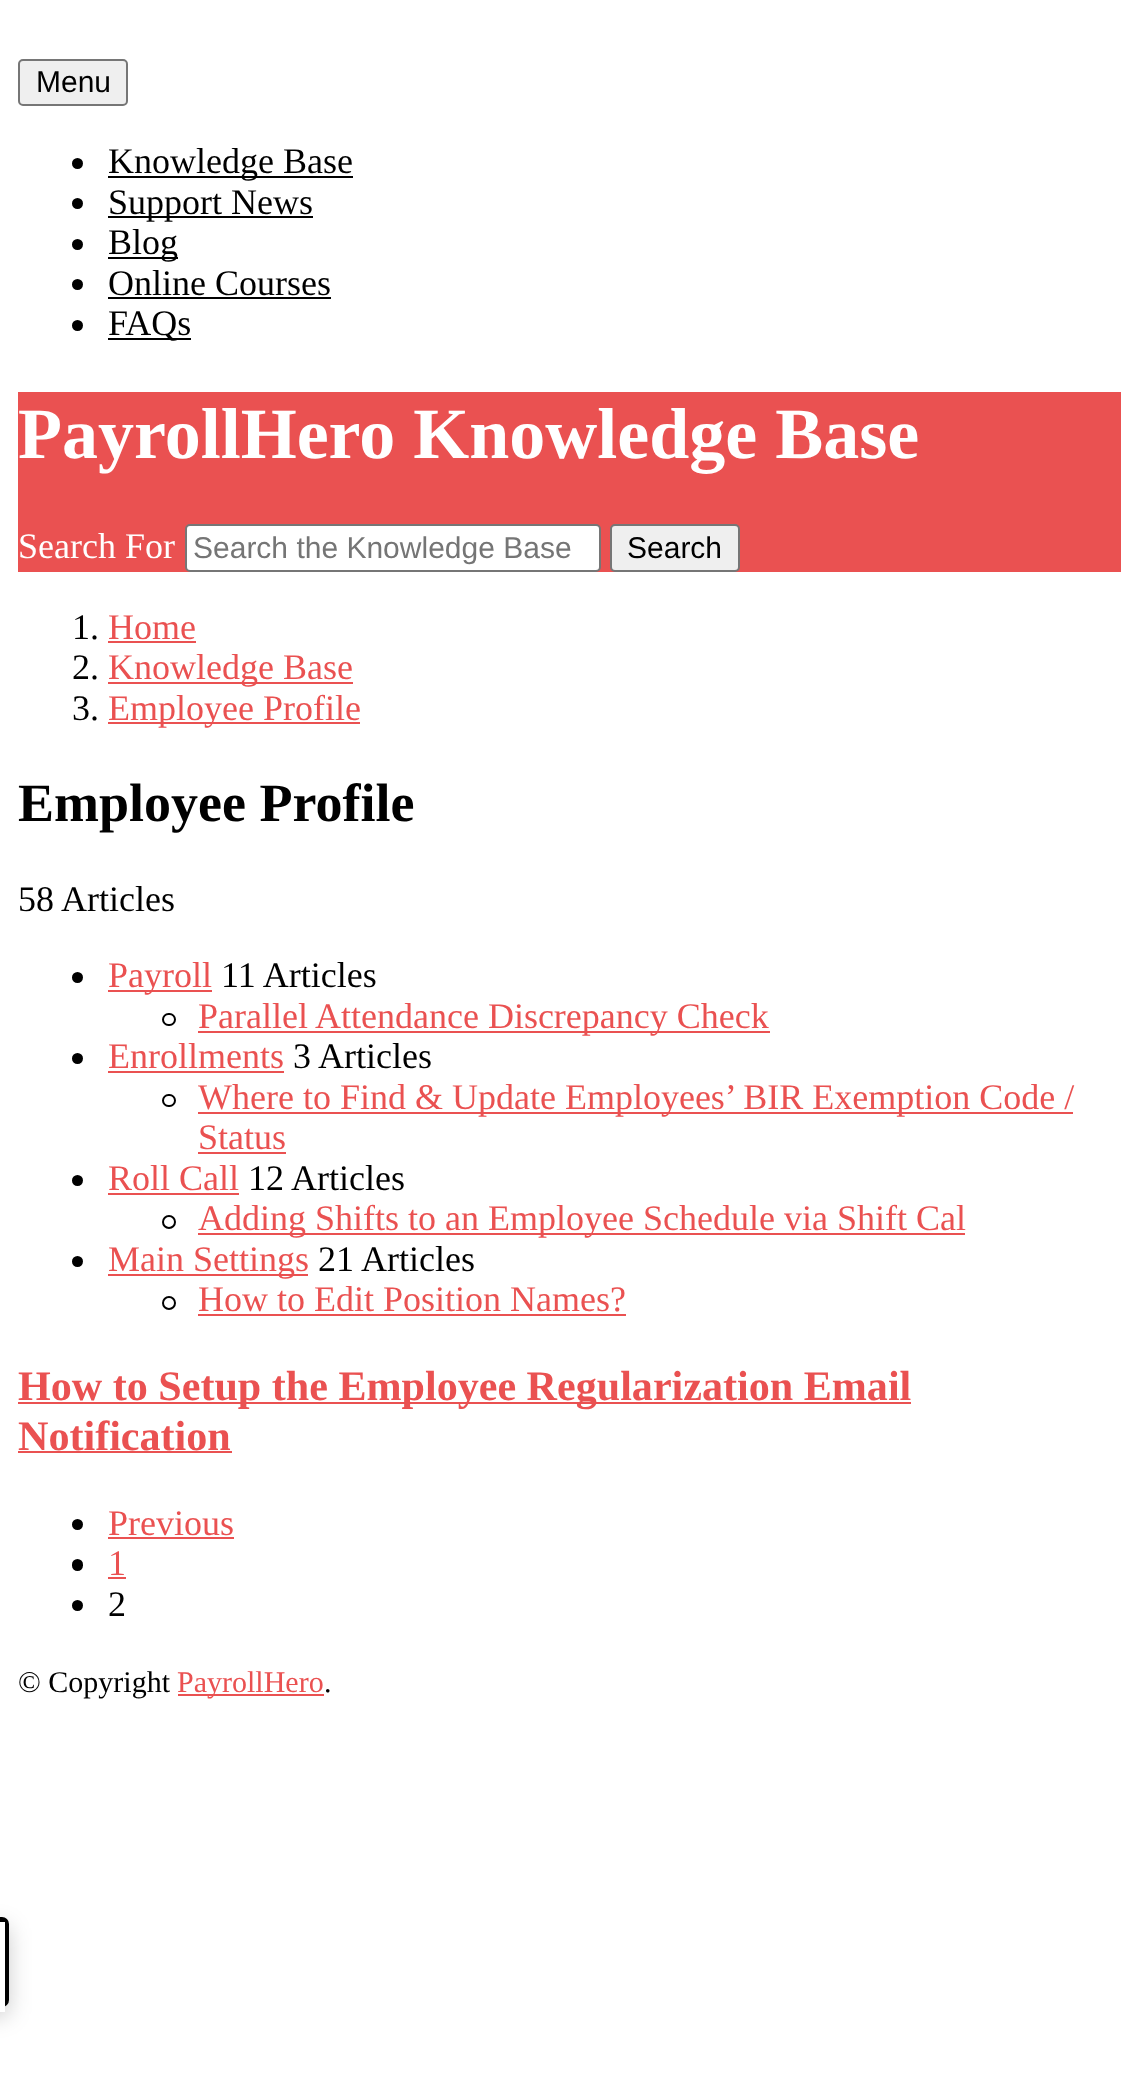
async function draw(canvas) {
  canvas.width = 1137
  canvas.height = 2095
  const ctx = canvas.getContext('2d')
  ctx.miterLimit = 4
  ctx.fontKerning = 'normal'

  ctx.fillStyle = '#fff'
  ctx.fillRect(0, 0, 1137, 2095)
  ctx.fillStyle = '#efefef'
  ctx.beginPath()
  ctx.roundRect(19, 60, 108, 45, 4)
  ctx.fill()
  ctx.strokeStyle = '#767676'
  ctx.lineWidth = 2
  ctx.stroke()
  ctx.font = '30px Liberation Sans'
  ctx.fillStyle = '#000'
  ctx.fillText('Menu', 36, 92)
  ctx.beginPath()
  ctx.arc(77.5, 163.5, 5.5, 0, 2 * Math.PI)
  ctx.fill()
  ctx.fillRect(108, 176, 245, 2)
  ctx.font = '36px Liberation Serif'
  ctx.fillText('Knowledge Base', 108, 173)
  ctx.beginPath()
  ctx.arc(77.5, 203.5, 5.5, 0, 2 * Math.PI)
  ctx.fill()
  ctx.fillRect(108, 216, 205, 2)
  ctx.fillText('Support News', 108, 214)
  ctx.beginPath()
  ctx.arc(77.5, 244.5, 5.5, 0, 2 * Math.PI)
  ctx.fill()
  ctx.fillRect(108, 257, 70, 2)
  ctx.fillText('Blog', 108, 254)
  ctx.beginPath()
  ctx.arc(77.5, 284.5, 5.5, 0, 2 * Math.PI)
  ctx.fill()
  ctx.fillText('Online Courses', 108, 295)
  ctx.fillRect(108, 297, 223, 2)
  ctx.beginPath()
  ctx.arc(77.5, 325.5, 5.5, 0, 2 * Math.PI)
  ctx.fill()
  ctx.fillRect(108, 338, 83, 2)
  ctx.fillText('FAQs', 108, 335)
  ctx.fillStyle = '#ea5151'
  ctx.fillRect(18, 392, 1103, 180)
  ctx.font = 'bold 72px Liberation Serif'
  ctx.fillStyle = '#fff'
  ctx.fillText('PayrollHero Knowledge Base', 18, 458)
  ctx.font = '36px Liberation Serif'
  ctx.fillText('Search For', 18, 558)
  ctx.beginPath()
  ctx.roundRect(186, 525, 414, 46, 4)
  ctx.fill()
  ctx.stroke()
  ctx.font = '30px Liberation Sans'
  ctx.fillStyle = '#757575'
  ctx.fillText('Search the Knowledge Base', 193, 558)
  ctx.fillStyle = '#efefef'
  ctx.beginPath()
  ctx.roundRect(611, 525, 128, 46, 4)
  ctx.fill()
  ctx.stroke()
  ctx.fillStyle = '#000'
  ctx.fillText('Search', 627, 558)
  ctx.font = '36px Liberation Serif'
  ctx.fillText('1.', 72, 639)
  ctx.fillStyle = '#ea5151'
  ctx.fillText('Home', 108, 639)
  ctx.fillRect(108, 641, 88, 2)
  ctx.fillStyle = '#000'
  ctx.fillText('2.', 72, 679)
  ctx.fillStyle = '#ea5151'
  ctx.fillRect(108, 682, 245, 2)
  ctx.fillText('Knowledge Base', 108, 679)
  ctx.fillStyle = '#000'
  ctx.fillText('3.', 72, 720)
  ctx.fillStyle = '#ea5151'
  ctx.fillRect(108, 722, 252, 2)
  ctx.fillText('Employee Profile', 108, 720)
  ctx.font = 'bold 54px Liberation Serif'
  ctx.fillStyle = '#000'
  ctx.fillText('Employee Profile', 18, 821)
  ctx.font = '36px Liberation Serif'
  ctx.fillText('58 Articles', 18, 911)
  ctx.beginPath()
  ctx.arc(77.5, 977.5, 5.5, 0, 2 * Math.PI)
  ctx.fill()
  ctx.fillStyle = '#ea5151'
  ctx.fillRect(108, 990, 104, 2)
  ctx.fillText('Payroll', 108, 987)
  ctx.fillStyle = '#000'
  ctx.fillText('11 Articles', 221, 987)
  ctx.beginPath()
  ctx.roundRect(163, 1014, 12, 11, 5.5)
  ctx.strokeStyle = '#000'
  ctx.stroke()
  ctx.fillStyle = '#ea5151'
  ctx.fillRect(198, 1031, 572, 2)
  ctx.fillText('Parallel Attendance Discrepancy Check', 198, 1028)
  ctx.fillStyle = '#000'
  ctx.beginPath()
  ctx.arc(77.5, 1058.5, 5.5, 0, 2 * Math.PI)
  ctx.fill()
  ctx.fillStyle = '#ea5151'
  ctx.fillText('Enrollments', 108, 1068)
  ctx.fillRect(108, 1071, 176, 2)
  ctx.fillStyle = '#000'
  ctx.fillText('3 Articles', 293, 1068)
  ctx.beginPath()
  ctx.roundRect(163, 1095, 12, 11, 5.5)
  ctx.stroke()
  ctx.fillStyle = '#ea5151'
  ctx.fillRect(198, 1112, 875, 2)
  ctx.fillText('Where to Find & Update Employees’ BIR Exemption Code /', 198, 1109)
  ctx.fillText('Status', 198, 1149)
  ctx.fillRect(198, 1152, 88, 2)
  ctx.fillStyle = '#000'
  ctx.beginPath()
  ctx.arc(77.5, 1180.5, 5.5, 0, 2 * Math.PI)
  ctx.fill()
  ctx.fillStyle = '#ea5151'
  ctx.fillText('Roll Call', 108, 1190)
  ctx.fillRect(108, 1193, 131, 2)
  ctx.fillStyle = '#000'
  ctx.fillText('12 Articles', 248, 1190)
  ctx.beginPath()
  ctx.arc(169, 1222, 6, 0, 2 * Math.PI)
  ctx.stroke()
  ctx.fillStyle = '#ea5151'
  ctx.fillRect(198, 1233, 767, 2)
  ctx.fillText('Adding Shifts to an Employee Schedule via Shift Cal', 198, 1230)
  ctx.fillStyle = '#000'
  ctx.beginPath()
  ctx.arc(77.5, 1261.5, 5.5, 0, 2 * Math.PI)
  ctx.fill()
  ctx.fillStyle = '#ea5151'
  ctx.fillRect(108, 1274, 200, 2)
  ctx.fillText('Main Settings', 108, 1271)
  ctx.fillStyle = '#000'
  ctx.fillText('21 Articles', 318, 1271)
  ctx.beginPath()
  ctx.arc(169, 1303, 6, 0, 2 * Math.PI)
  ctx.stroke()
  ctx.fillStyle = '#ea5151'
  ctx.fillText('How to Edit Position Names?', 198, 1311)
  ctx.fillRect(198, 1314, 428, 2)
  ctx.fillRect(18, 1402, 893, 2)
  ctx.font = 'bold 42.1px Liberation Serif'
  ctx.fillText('How to Setup the Employee Regularization Email', 18, 1400)
  ctx.fillText('Notification', 18, 1450)
  ctx.fillRect(18, 1451, 214, 2)
  ctx.fillStyle = '#000'
  ctx.beginPath()
  ctx.arc(77.5, 1524.5, 5.5, 0, 2 * Math.PI)
  ctx.fill()
  ctx.font = '36px Liberation Serif'
  ctx.fillStyle = '#ea5151'
  ctx.fillText('Previous', 108, 1535)
  ctx.fillRect(108, 1537, 126, 2)
  ctx.fillStyle = '#000'
  ctx.beginPath()
  ctx.roundRect(72, 1559, 11, 12, 5.5)
  ctx.fill()
  ctx.fillStyle = '#ea5151'
  ctx.fillText('1', 108, 1575)
  ctx.fillRect(108, 1577, 18, 2)
  ctx.fillStyle = '#000'
  ctx.beginPath()
  ctx.arc(77.5, 1605.5, 5.5, 0, 2 * Math.PI)
  ctx.fill()
  ctx.fillText('2', 108, 1616)
  ctx.font = '30px Liberation Serif'
  ctx.fillText('© Copyright', 18, 1692)
  ctx.fillStyle = '#ea5151'
  ctx.fillRect(178, 1694, 146, 2)
  ctx.fillText('PayrollHero', 177, 1692)
  ctx.fillStyle = '#000'
  ctx.fillText('.', 324, 1692)
  ctx.fillStyle = '#00000033'
  ctx.filter = 'blur(11px)'
  ctx.beginPath()
  ctx.roundRect(-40, 1926, 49, 90, 7)
  ctx.fill()
  ctx.filter = 'none'
  ctx.beginPath()
  ctx.moveTo(-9.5, 1919.5)
  ctx.lineTo(2, 1919.5)
  ctx.bezierCurveTo(4.5, 1919.5, 6.5, 1921.5, 6.5, 1924)
  ctx.lineTo(6.5, 2000)
  ctx.bezierCurveTo(6.5, 2002.5, 4.5, 2004.5, 2, 2004.5)
  ctx.lineTo(-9.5, 2004.5)
  ctx.closePath()
  ctx.lineWidth = 5
  ctx.stroke()
  ctx.fillStyle = '#fff'
  ctx.fillRect(0, 1922, 5, 90)
}

draw(document.querySelector('canvas'))
